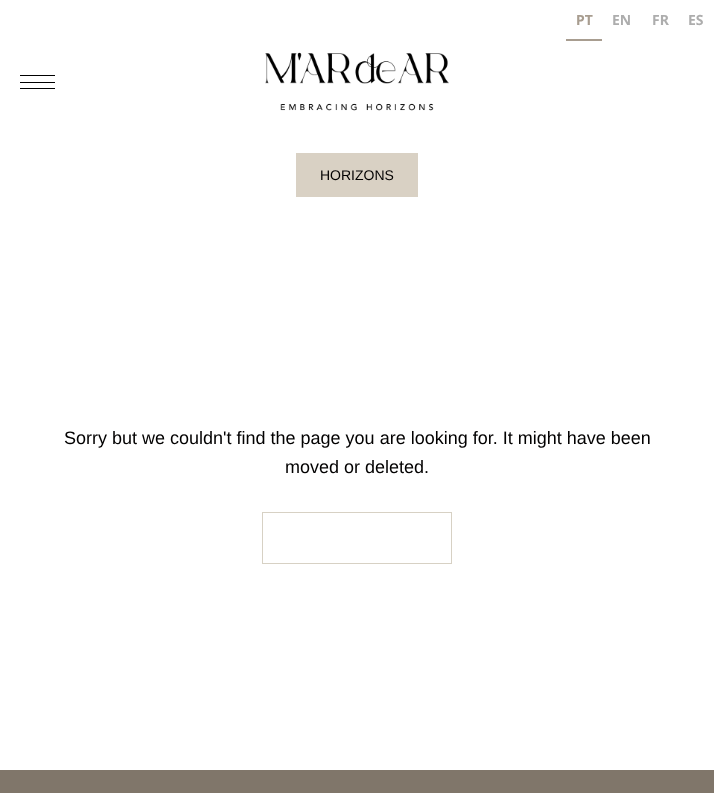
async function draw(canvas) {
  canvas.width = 714
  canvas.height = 793
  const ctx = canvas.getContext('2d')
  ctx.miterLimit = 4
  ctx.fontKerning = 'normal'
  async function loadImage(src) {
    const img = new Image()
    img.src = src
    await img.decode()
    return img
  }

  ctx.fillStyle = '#fff'
  ctx.fillRect(0, 0, 714, 793)
  ctx.font = 'bold 14px Noto Sans'
  ctx.fillStyle = '#a89d90'
  ctx.fillText('PT', 576, 25)
  ctx.fillRect(566, 39, 36, 2)
  ctx.fillStyle = '#adadad'
  ctx.fillText('EN', 612, 25)
  ctx.fillText('FR', 652, 25)
  ctx.fillText('ES', 688, 25)
  ctx.fillStyle = '#000'
  ctx.fillRect(20, 75, 35, 1)
  ctx.fillRect(20, 88, 35, 1)
  ctx.fillRect(20, 82, 35, 1)
  ctx.drawImage(await loadImage('image0.png'), 265, 52, 184, 59)
  ctx.fillStyle = '#d9d1c4'
  ctx.fillRect(296, 153, 122, 44)
  ctx.font = '14px Liberation Sans'
  ctx.fillStyle = '#020101'
  ctx.fillText('HORIZONS', 320, 180)
  ctx.font = '18px Liberation Sans'
  ctx.fillText('Sorry but we couldn\'t find the page you are looking for. It might have been', 64, 444)
  ctx.fillText('moved or deleted.', 285, 473)
  ctx.strokeStyle = '#d7d1c4'
  ctx.strokeRect(262.5, 512.5, 189, 51)
  ctx.fillStyle = '#80766a'
  ctx.fillRect(0, 770, 714, 23)
}

draw(document.querySelector('canvas'))
